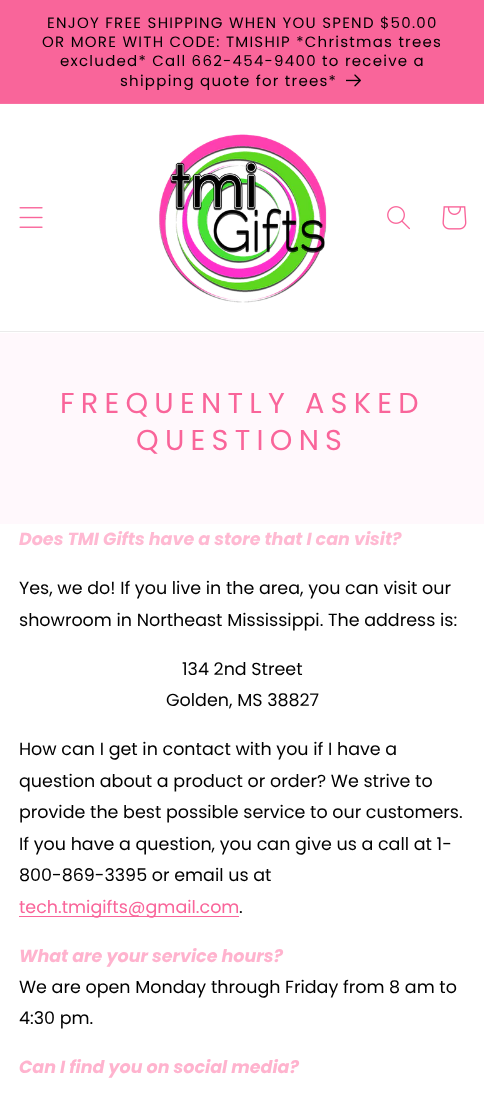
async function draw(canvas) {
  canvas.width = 484
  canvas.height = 1097
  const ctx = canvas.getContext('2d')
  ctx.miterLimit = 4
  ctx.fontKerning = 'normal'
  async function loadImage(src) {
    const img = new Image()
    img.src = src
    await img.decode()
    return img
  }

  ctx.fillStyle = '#fff'
  ctx.fillRect(0, 0, 484, 1097)
  ctx.fillStyle = '#f9659a'
  ctx.fillRect(0, 0, 484, 103)
  ctx.fillStyle = '#f971a2'
  ctx.fillRect(0, 103, 484, 1)
  ctx.letterSpacing = '1.25px'
  ctx.font = '15px Poppins'
  ctx.fillStyle = '#000'
  ctx.fillText('ENJOY FREE SHIPPING WHEN YOU SPEND $50.00', 47, 28)
  ctx.fillText('OR MORE WITH CODE: TMISHIP *Christmas trees', 42, 47)
  ctx.fillText('excluded* Call 662-454-9400 to receive a', 60, 66)
  ctx.fillText('shipping quote for trees*', 120, 86)
  ctx.drawImage(await loadImage('image0.png'), 346, 74, 15, 13)
  ctx.fillStyle = '#ebebeb'
  ctx.fillRect(0, 331, 484, 1)
  ctx.drawImage(await loadImage('image1.png'), 19, 207, 24, 21)
  ctx.drawImage(await loadImage('image2.png'), 159, 134, 168, 169)
  ctx.drawImage(await loadImage('image3.png'), 387, 206, 23, 24)
  ctx.drawImage(await loadImage('image4.png'), 442, 206, 25, 24)
  ctx.fillStyle = '#fff8fc'
  ctx.fillRect(0, 333, 484, 191)
  ctx.letterSpacing = '6.25px'
  ctx.font = '28.75px Poppins'
  ctx.fillStyle = '#f9659a'
  ctx.fillText('FREQUENTLY ASKED', 60, 413)
  ctx.fillText('QUESTIONS', 136, 450)
  ctx.letterSpacing = '0px'
  ctx.font = 'italic bold 17.5px Poppins'
  ctx.fillStyle = '#ffb9d2'
  ctx.fillText('Does TMI Gifts have a store that I can visit?', 19, 545)
  ctx.font = '17.5px Poppins'
  ctx.fillStyle = '#000'
  ctx.fillText('Yes, we do! If you live in the area, you can visit our', 19, 594)
  ctx.fillText('showroom in Northeast Mississippi. The address is:', 19, 626)
  ctx.fillText('134 2nd Street', 182, 675)
  ctx.fillText('Golden, MS 38827', 166, 706)
  ctx.fillText('How can I get in contact with you if I have a', 19, 755)
  ctx.fillText('question about a product or order? We strive to', 19, 787)
  ctx.fillText('provide the best possible service to our customers.', 19, 818)
  ctx.fillText('If you have a question, you can give us a call at 1-', 19, 850)
  ctx.fillText('800-869-3395 or email us at', 19, 881)
  ctx.fillStyle = '#f9659a'
  ctx.fillRect(19, 916, 220, 1)
  ctx.fillText('tech.tmigifts@gmail.com', 19, 913)
  ctx.fillStyle = '#000'
  ctx.fillText('.', 239, 913)
  ctx.font = 'italic bold 17.5px Poppins'
  ctx.fillStyle = '#ffb3ce'
  ctx.fillText('What are your service hours?', 19, 962)
  ctx.font = '17.5px Poppins'
  ctx.fillStyle = '#000'
  ctx.fillText('We are open Monday through Friday from 8 am to', 19, 993)
  ctx.fillText('4:30 pm.', 19, 1024)
  ctx.font = 'italic bold 17.5px Poppins'
  ctx.fillStyle = '#ffb3ce'
  ctx.fillText('Can I find you on social media?', 19, 1073)
}

draw(document.querySelector('canvas'))
